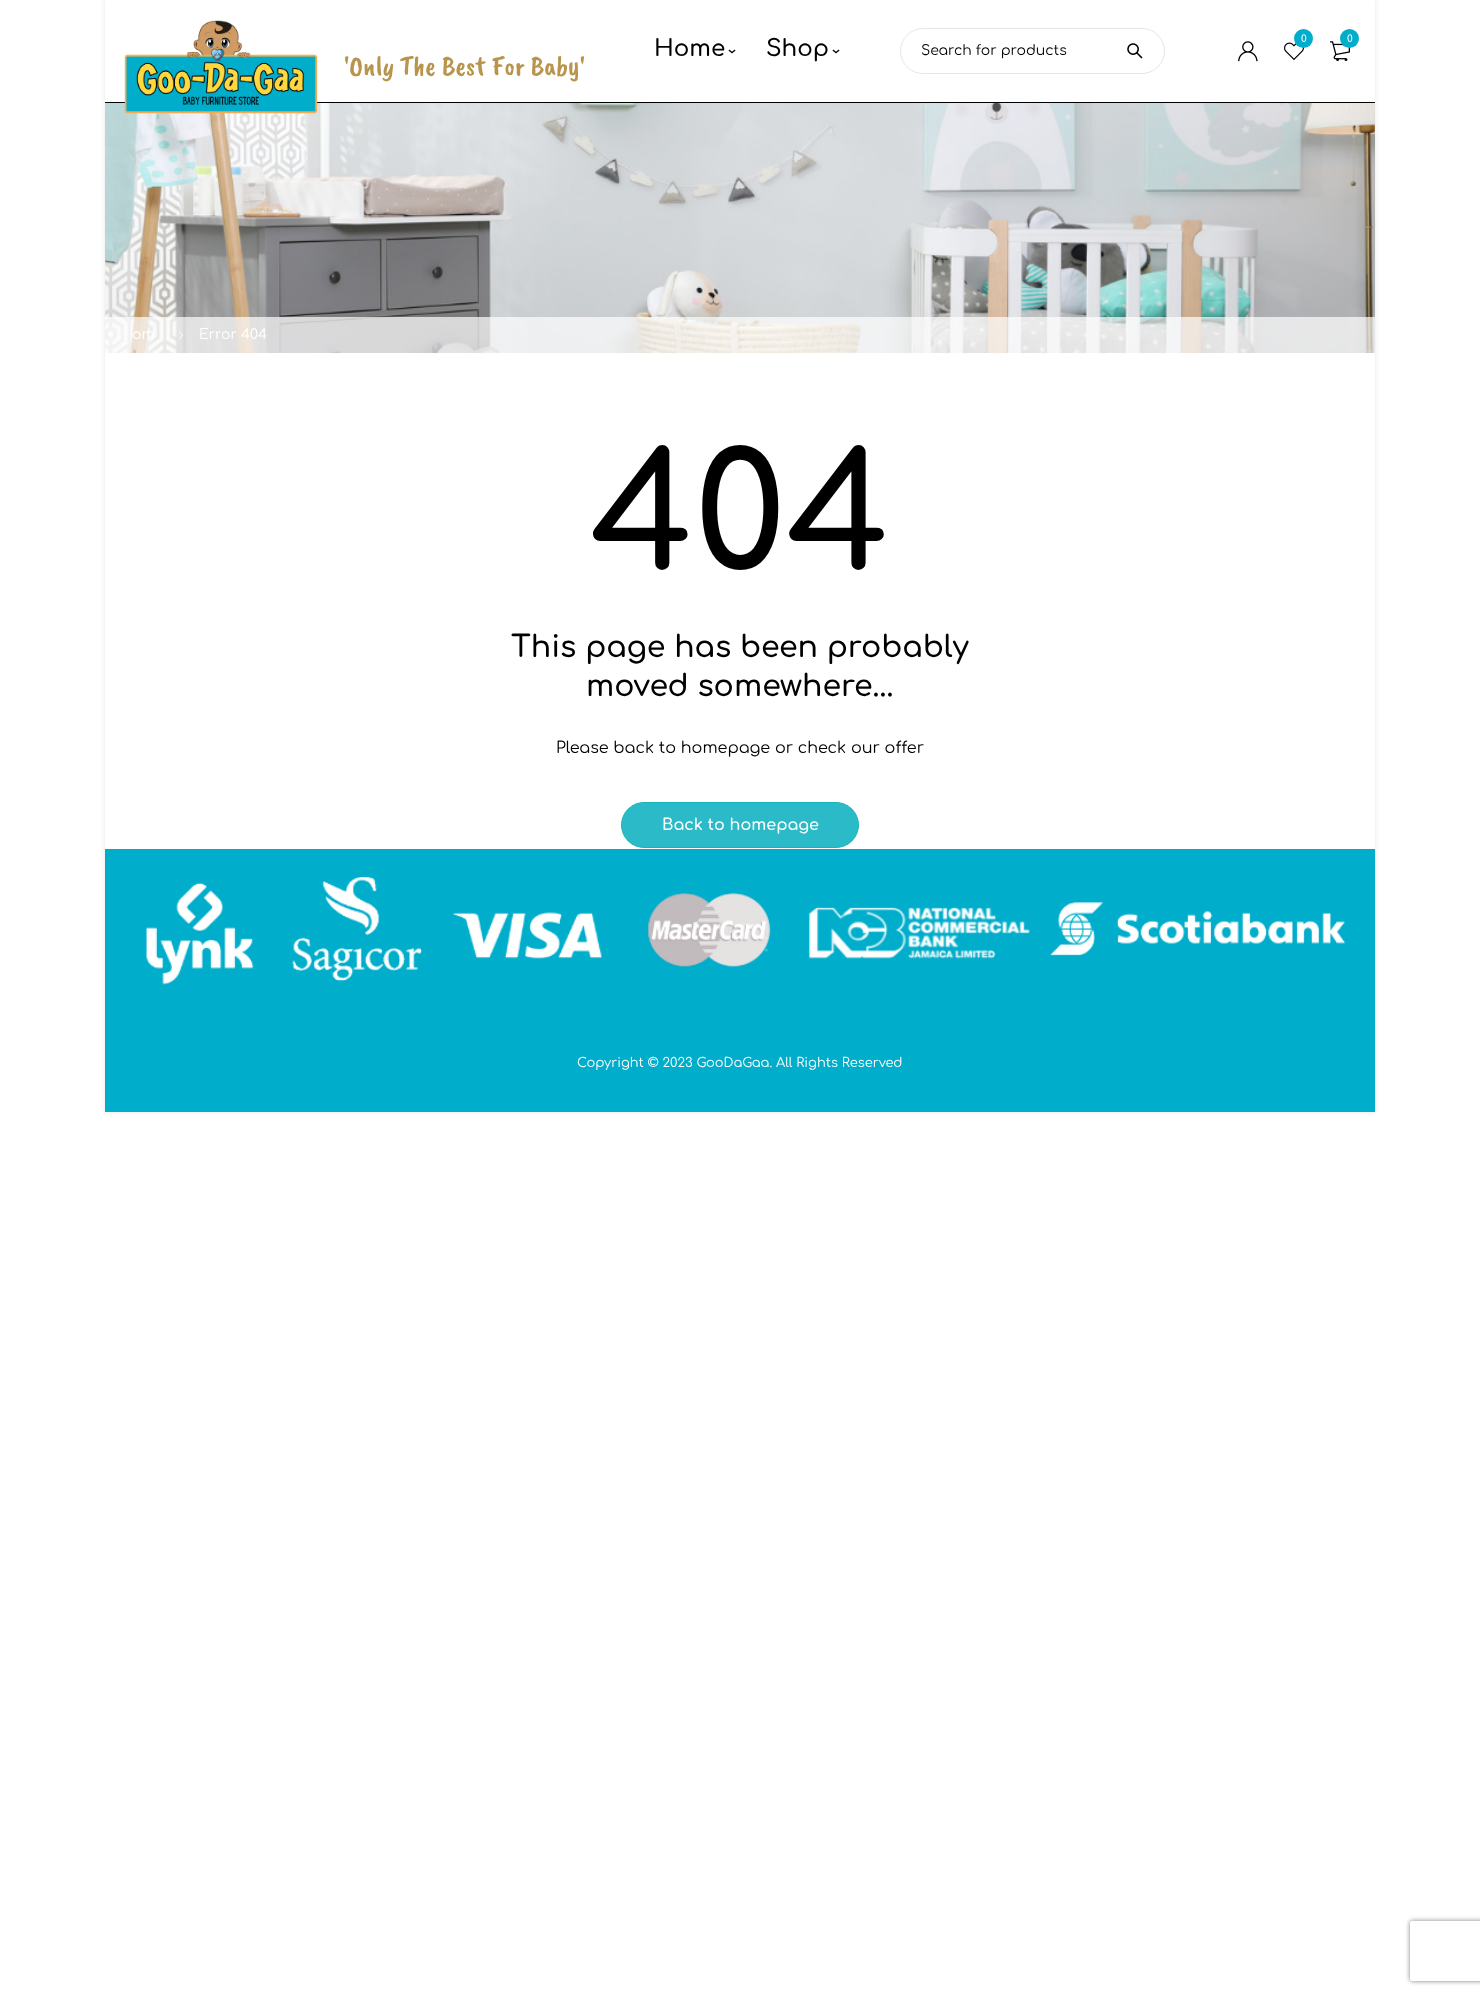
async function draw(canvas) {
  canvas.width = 1480
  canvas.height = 1995
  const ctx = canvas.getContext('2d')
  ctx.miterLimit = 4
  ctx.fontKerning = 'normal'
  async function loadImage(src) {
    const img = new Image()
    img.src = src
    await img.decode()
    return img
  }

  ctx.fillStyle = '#fff'
  ctx.fillRect(0, 0, 1480, 1995)
  ctx.save()
  ctx.beginPath()
  ctx.moveTo(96, 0)
  ctx.lineTo(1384, 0)
  ctx.lineTo(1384, 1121)
  ctx.lineTo(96, 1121)
  ctx.closePath()
  ctx.moveTo(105, 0)
  ctx.lineTo(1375, 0)
  ctx.lineTo(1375, 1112)
  ctx.lineTo(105, 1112)
  ctx.closePath()
  ctx.clip('evenodd')
  ctx.fillStyle = '#0000001a'
  ctx.filter = 'blur(2.5px)'
  ctx.beginPath()
  ctx.rect(105, 0, 1270, 1112)
  ctx.fill()
  ctx.filter = 'none'
  ctx.restore()
  ctx.fillStyle = '#000'
  ctx.fillRect(105, 102, 1270, 1)
  ctx.font = '600 23px Comfortaa'
  ctx.fillText('Home', 654, 56)
  ctx.drawImage(await loadImage('image0.png'), 728, 49, 8, 5)
  ctx.fillText('Shop', 766, 56)
  ctx.drawImage(await loadImage('image0.png'), 832, 49, 8, 5)
  ctx.beginPath()
  ctx.roundRect(900.5, 28.5, 264, 45, 22.5)
  ctx.strokeStyle = '#e6e6e6'
  ctx.stroke()
  ctx.font = '14px Comfortaa'
  ctx.fillText('Search for products', 921, 55)
  ctx.drawImage(await loadImage('image1.png'), 1127, 43, 16, 16)
  ctx.drawImage(await loadImage('image2.png'), 1284, 42, 20, 19)
  ctx.fillStyle = '#00adcb'
  ctx.beginPath()
  ctx.arc(1303.5, 38.5, 9.5, 0, 2 * Math.PI)
  ctx.fill()
  ctx.font = '600 10px Comfortaa'
  ctx.fillStyle = '#fff'
  ctx.fillText('0', 1301, 42)
  ctx.drawImage(await loadImage('image3.png'), 1330, 41, 20, 20)
  ctx.fillStyle = '#00adcb'
  ctx.beginPath()
  ctx.arc(1349.5, 38.5, 9.5, 0, 2 * Math.PI)
  ctx.fill()
  ctx.fillStyle = '#fff'
  ctx.fillText('0', 1347, 42)
  ctx.drawImage(await loadImage('image4.png'), 1238, 41, 20, 21)
  ctx.drawImage(await loadImage('image6.png'), 105, 103, 1270, 250)
  ctx.drawImage(await loadImage('image5.png'), 124, 20, 194, 94)
  ctx.font = '28px Caveat Brush'
  ctx.fillStyle = '#b8944d'
  ctx.fillText('\'Only The Best For Baby\'', 344, 75)
  ctx.fillStyle = '#ffffffb3'
  ctx.fillRect(105, 317, 1270, 36)
  ctx.font = '14px Comfortaa'
  ctx.fillStyle = '#fff'
  ctx.fillText('om', 132, 339)
  ctx.drawImage(await loadImage('image7.png'), 179, 331, 4, 9)
  ctx.fillText('Error 404', 199, 339)
  ctx.font = '600 160px Comfortaa'
  ctx.fillStyle = '#000'
  ctx.fillText('404', 590, 570)
  ctx.font = '600 30px Comfortaa'
  ctx.fillText('This page has been probably', 511, 657)
  ctx.fillText('moved somewhere...', 586, 696)
  ctx.font = '16px Comfortaa'
  ctx.fillText('Please back to homepage or check our offer', 556, 753)
  ctx.fillStyle = '#2bbac7'
  ctx.beginPath()
  ctx.roundRect(621.5, 802.5, 237, 45, 22.5)
  ctx.fill()
  ctx.strokeStyle = '#17b6b5'
  ctx.stroke()
  ctx.font = '600 16px Comfortaa'
  ctx.fillStyle = '#fff'
  ctx.fillText('Back to homepage', 662, 830)
  ctx.fillStyle = '#00adcb'
  ctx.fillRect(105, 849, 1270, 263)
  ctx.drawImage(await loadImage('image8.png'), 145, 877, 1201, 108)
  ctx.font = '13px Comfortaa'
  ctx.fillStyle = '#fff'
  ctx.fillText('Copyright © 2023 GooDaGaa. All Rights Reserved', 577, 1067)
  ctx.save()
  ctx.beginPath()
  ctx.moveTo(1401, 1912)
  ctx.lineTo(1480, 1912)
  ctx.lineTo(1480, 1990)
  ctx.lineTo(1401, 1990)
  ctx.closePath()
  ctx.moveTo(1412, 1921)
  ctx.lineTo(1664, 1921)
  ctx.bezierCurveTo(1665, 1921, 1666, 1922, 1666, 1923)
  ctx.lineTo(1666, 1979)
  ctx.bezierCurveTo(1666, 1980, 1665, 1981, 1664, 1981)
  ctx.lineTo(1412, 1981)
  ctx.bezierCurveTo(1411, 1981, 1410, 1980, 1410, 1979)
  ctx.lineTo(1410, 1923)
  ctx.bezierCurveTo(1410, 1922, 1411, 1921, 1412, 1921)
  ctx.closePath()
  ctx.clip('evenodd')
  ctx.fillStyle = '#808080'
  ctx.filter = 'blur(2.5px)'
  ctx.beginPath()
  ctx.roundRect(1410, 1921, 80, 60, 2)
  ctx.fill()
  ctx.filter = 'none'
  ctx.restore()
}

draw(document.querySelector('canvas'))
